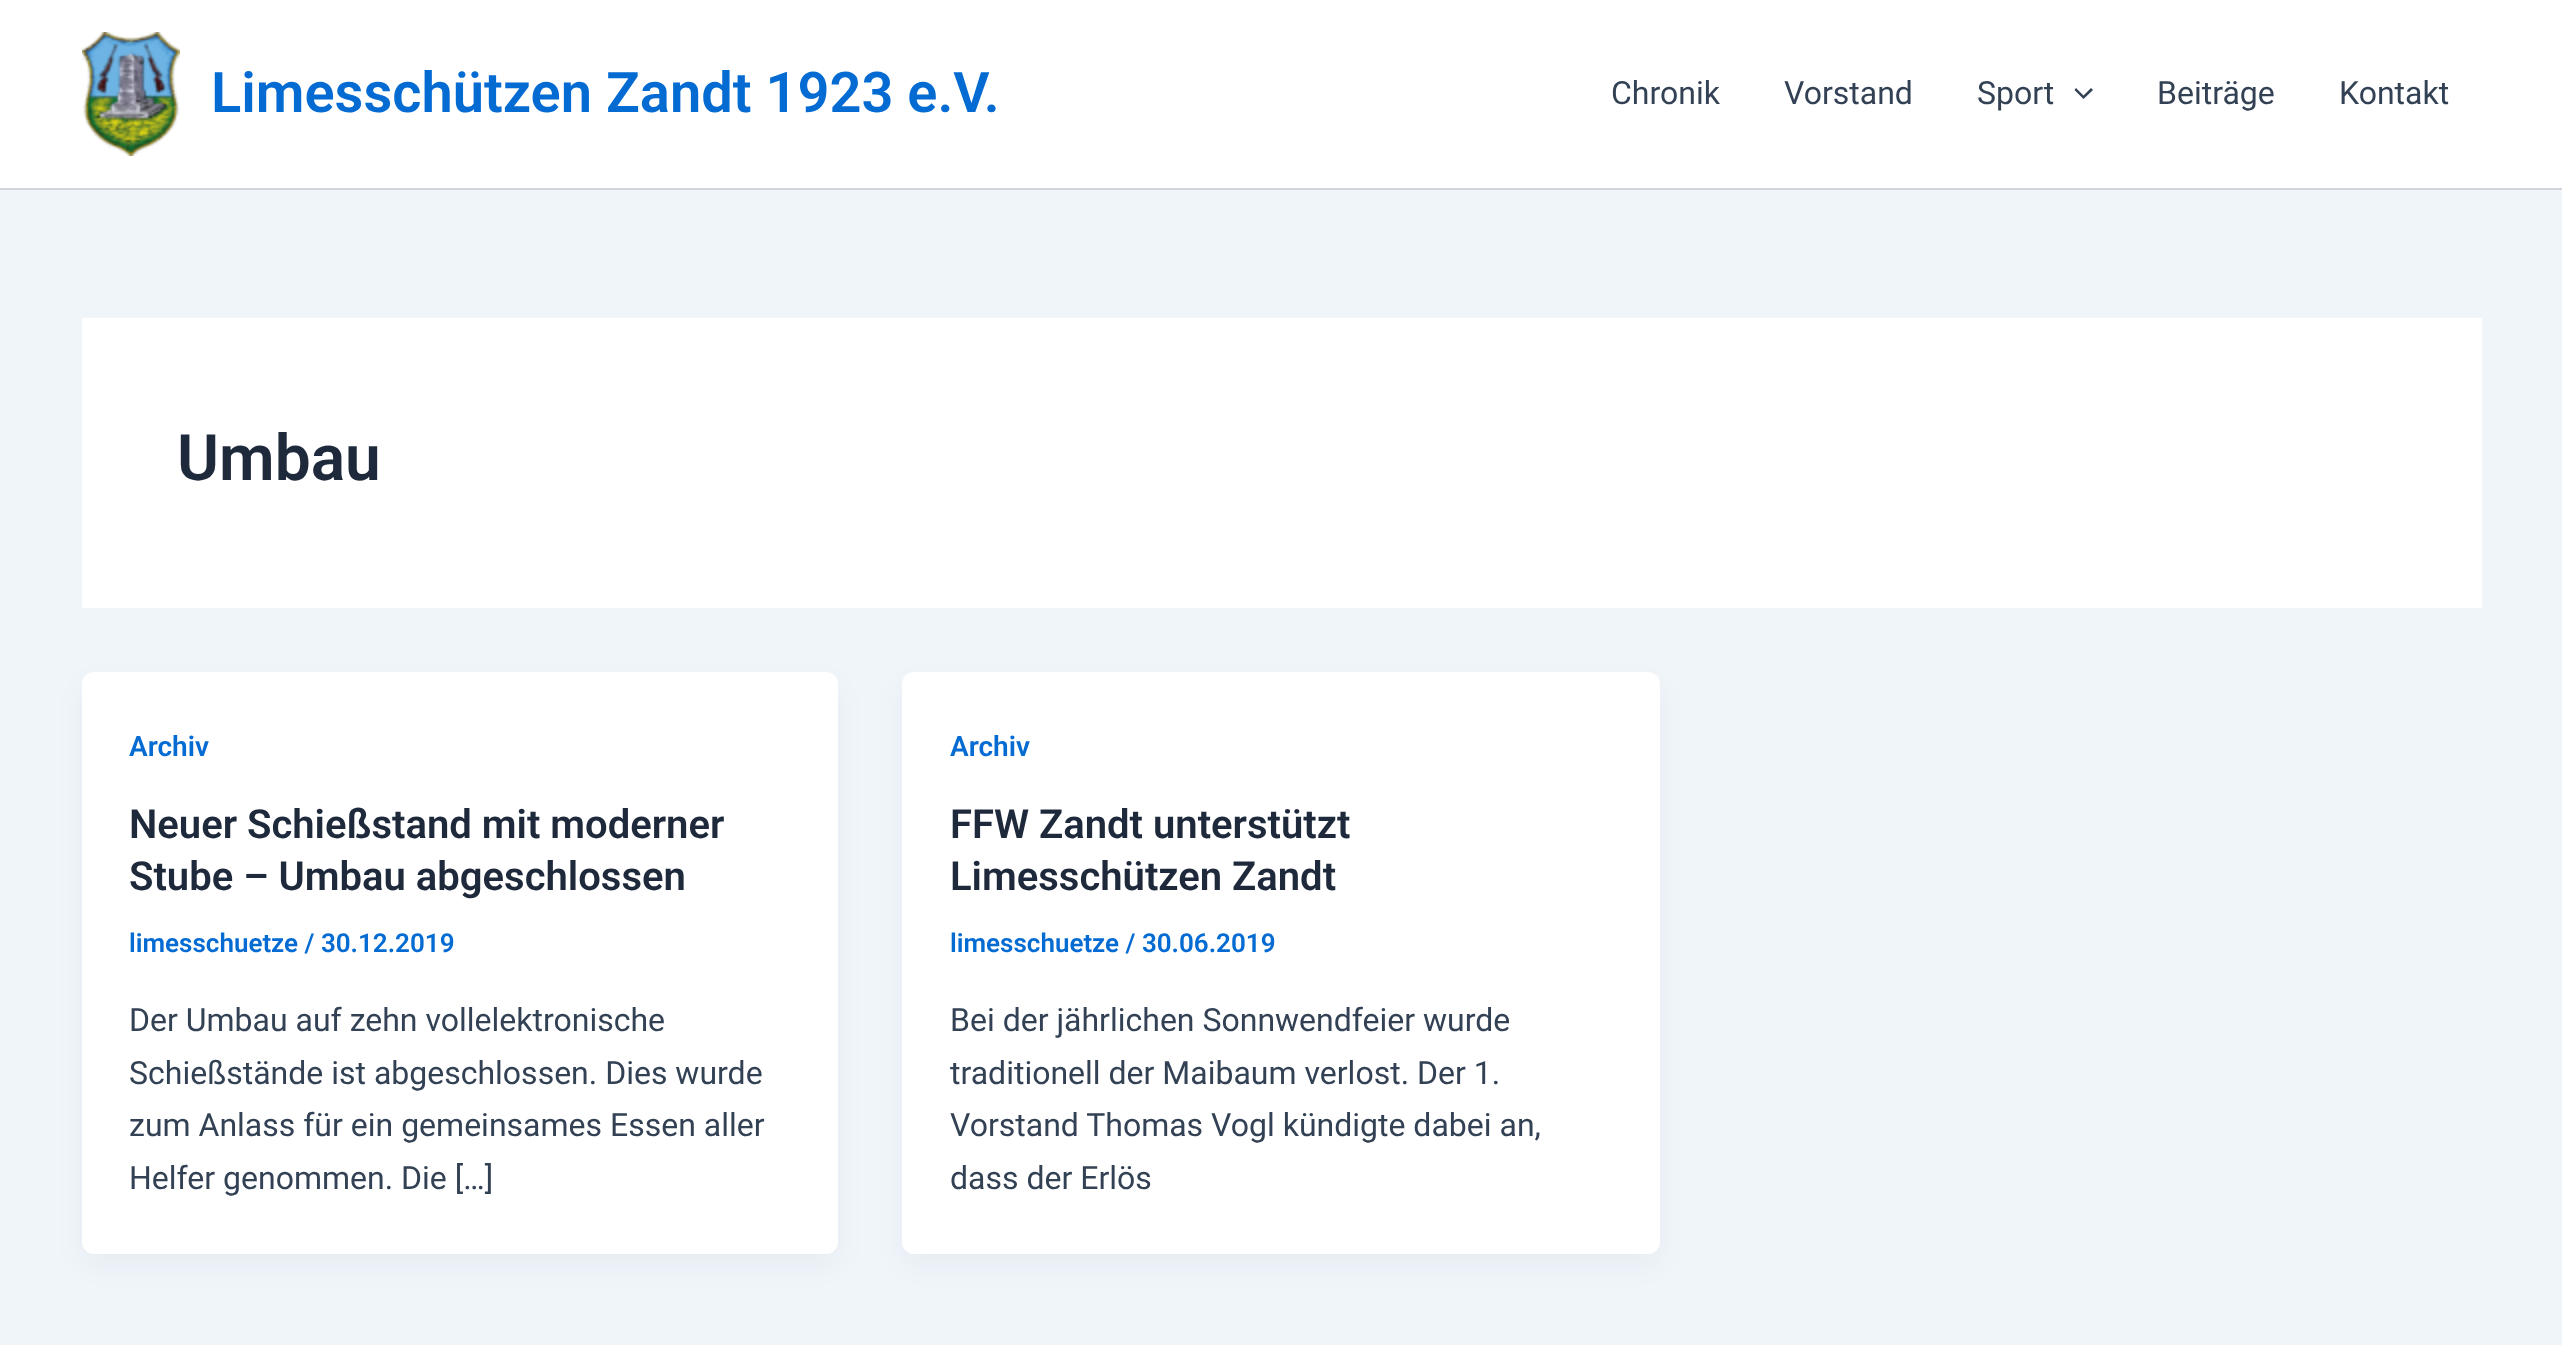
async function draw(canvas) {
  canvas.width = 2562
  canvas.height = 1345
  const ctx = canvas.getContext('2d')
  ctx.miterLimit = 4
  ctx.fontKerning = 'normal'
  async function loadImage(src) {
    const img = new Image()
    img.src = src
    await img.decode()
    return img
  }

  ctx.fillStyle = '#f0f5fa'
  ctx.fillRect(0, 0, 2562, 1345)
  ctx.fillStyle = '#fff'
  ctx.fillRect(0, 0, 2562, 188)
  ctx.fillStyle = '#d1d5db'
  ctx.fillRect(0, 188, 2562, 2)
  ctx.drawImage(await loadImage('image0.png'), 82, 32, 98, 124)
  ctx.font = '600 56px Roboto'
  ctx.fillStyle = '#046bd2'
  ctx.fillText('Limesschützen Zandt 1923 e.V.', 211, 112)
  ctx.font = '32px Roboto'
  ctx.fillStyle = '#334155'
  ctx.fillText('Chronik', 1611, 104)
  ctx.fillText('Vorstand', 1784, 104)
  ctx.fillText('Sport', 1977, 104)
  ctx.beginPath()
  ctx.moveTo(2074.5, 90)
  ctx.lineTo(2083.5, 99)
  ctx.lineTo(2093, 90)
  ctx.lineTo(2091, 88)
  ctx.lineTo(2083.5, 95.5)
  ctx.lineTo(2076, 88)
  ctx.closePath()
  ctx.fill()
  ctx.fillText('Beiträge', 2157, 104)
  ctx.fillText('Kontakt', 2339, 104)
  ctx.fillStyle = '#fff'
  ctx.fillRect(82, 318, 2400, 290)
  ctx.font = '600 64px Roboto'
  ctx.fillStyle = '#1e293b'
  ctx.fillText('Umbau', 177, 480)
  ctx.fillStyle = '#1018280d'
  ctx.filter = 'blur(15px)'
  ctx.beginPath()
  ctx.roundRect(86, 688, 748, 574, 8)
  ctx.fill()
  ctx.filter = 'none'
  ctx.fillStyle = '#fff'
  ctx.beginPath()
  ctx.roundRect(82, 672, 756, 582, 12)
  ctx.fill()
  ctx.font = '600 28px Roboto'
  ctx.fillStyle = '#046bd2'
  ctx.fillText('Archiv', 129, 756)
  ctx.font = '600 40px Roboto'
  ctx.fillStyle = '#1e293b'
  ctx.fillText('Neuer Schießstand mit moderner', 129, 838)
  ctx.fillText('Stube – Umbau abgeschlossen', 129, 890)
  ctx.font = '600 26px Roboto'
  ctx.fillStyle = '#046bd2'
  ctx.fillText('limesschuetze / 30.12.2019', 129, 952)
  ctx.font = '32px Roboto'
  ctx.fillStyle = '#334155'
  ctx.fillText('Der Umbau auf zehn vollelektronische', 129, 1031)
  ctx.fillText('Schießstände ist abgeschlossen. Dies wurde', 129, 1084)
  ctx.fillText('zum Anlass für ein gemeinsames Essen aller', 129, 1136)
  ctx.fillText('Helfer genommen. Die […]', 129, 1189)
  ctx.fillStyle = '#1018280d'
  ctx.filter = 'blur(15px)'
  ctx.beginPath()
  ctx.roundRect(906, 688, 750, 574, 8)
  ctx.fill()
  ctx.filter = 'none'
  ctx.fillStyle = '#fff'
  ctx.beginPath()
  ctx.roundRect(902, 672, 758, 582, 12)
  ctx.fill()
  ctx.font = '600 28px Roboto'
  ctx.fillStyle = '#046bd2'
  ctx.fillText('Archiv', 950, 756)
  ctx.font = '600 40px Roboto'
  ctx.fillStyle = '#1e293b'
  ctx.fillText('FFW Zandt unterstützt', 950, 838)
  ctx.fillText('Limesschützen Zandt', 950, 890)
  ctx.font = '600 26px Roboto'
  ctx.fillStyle = '#046bd2'
  ctx.fillText('limesschuetze / 30.06.2019', 950, 952)
  ctx.font = '32px Roboto'
  ctx.fillStyle = '#334155'
  ctx.fillText('Bei der jährlichen Sonnwendfeier wurde', 950, 1031)
  ctx.fillText('traditionell der Maibaum verlost. Der 1.', 950, 1084)
  ctx.fillText('Vorstand Thomas Vogl kündigte dabei an,', 950, 1136)
  ctx.fillText('dass der Erlös', 950, 1189)
}

draw(document.querySelector('canvas'))
